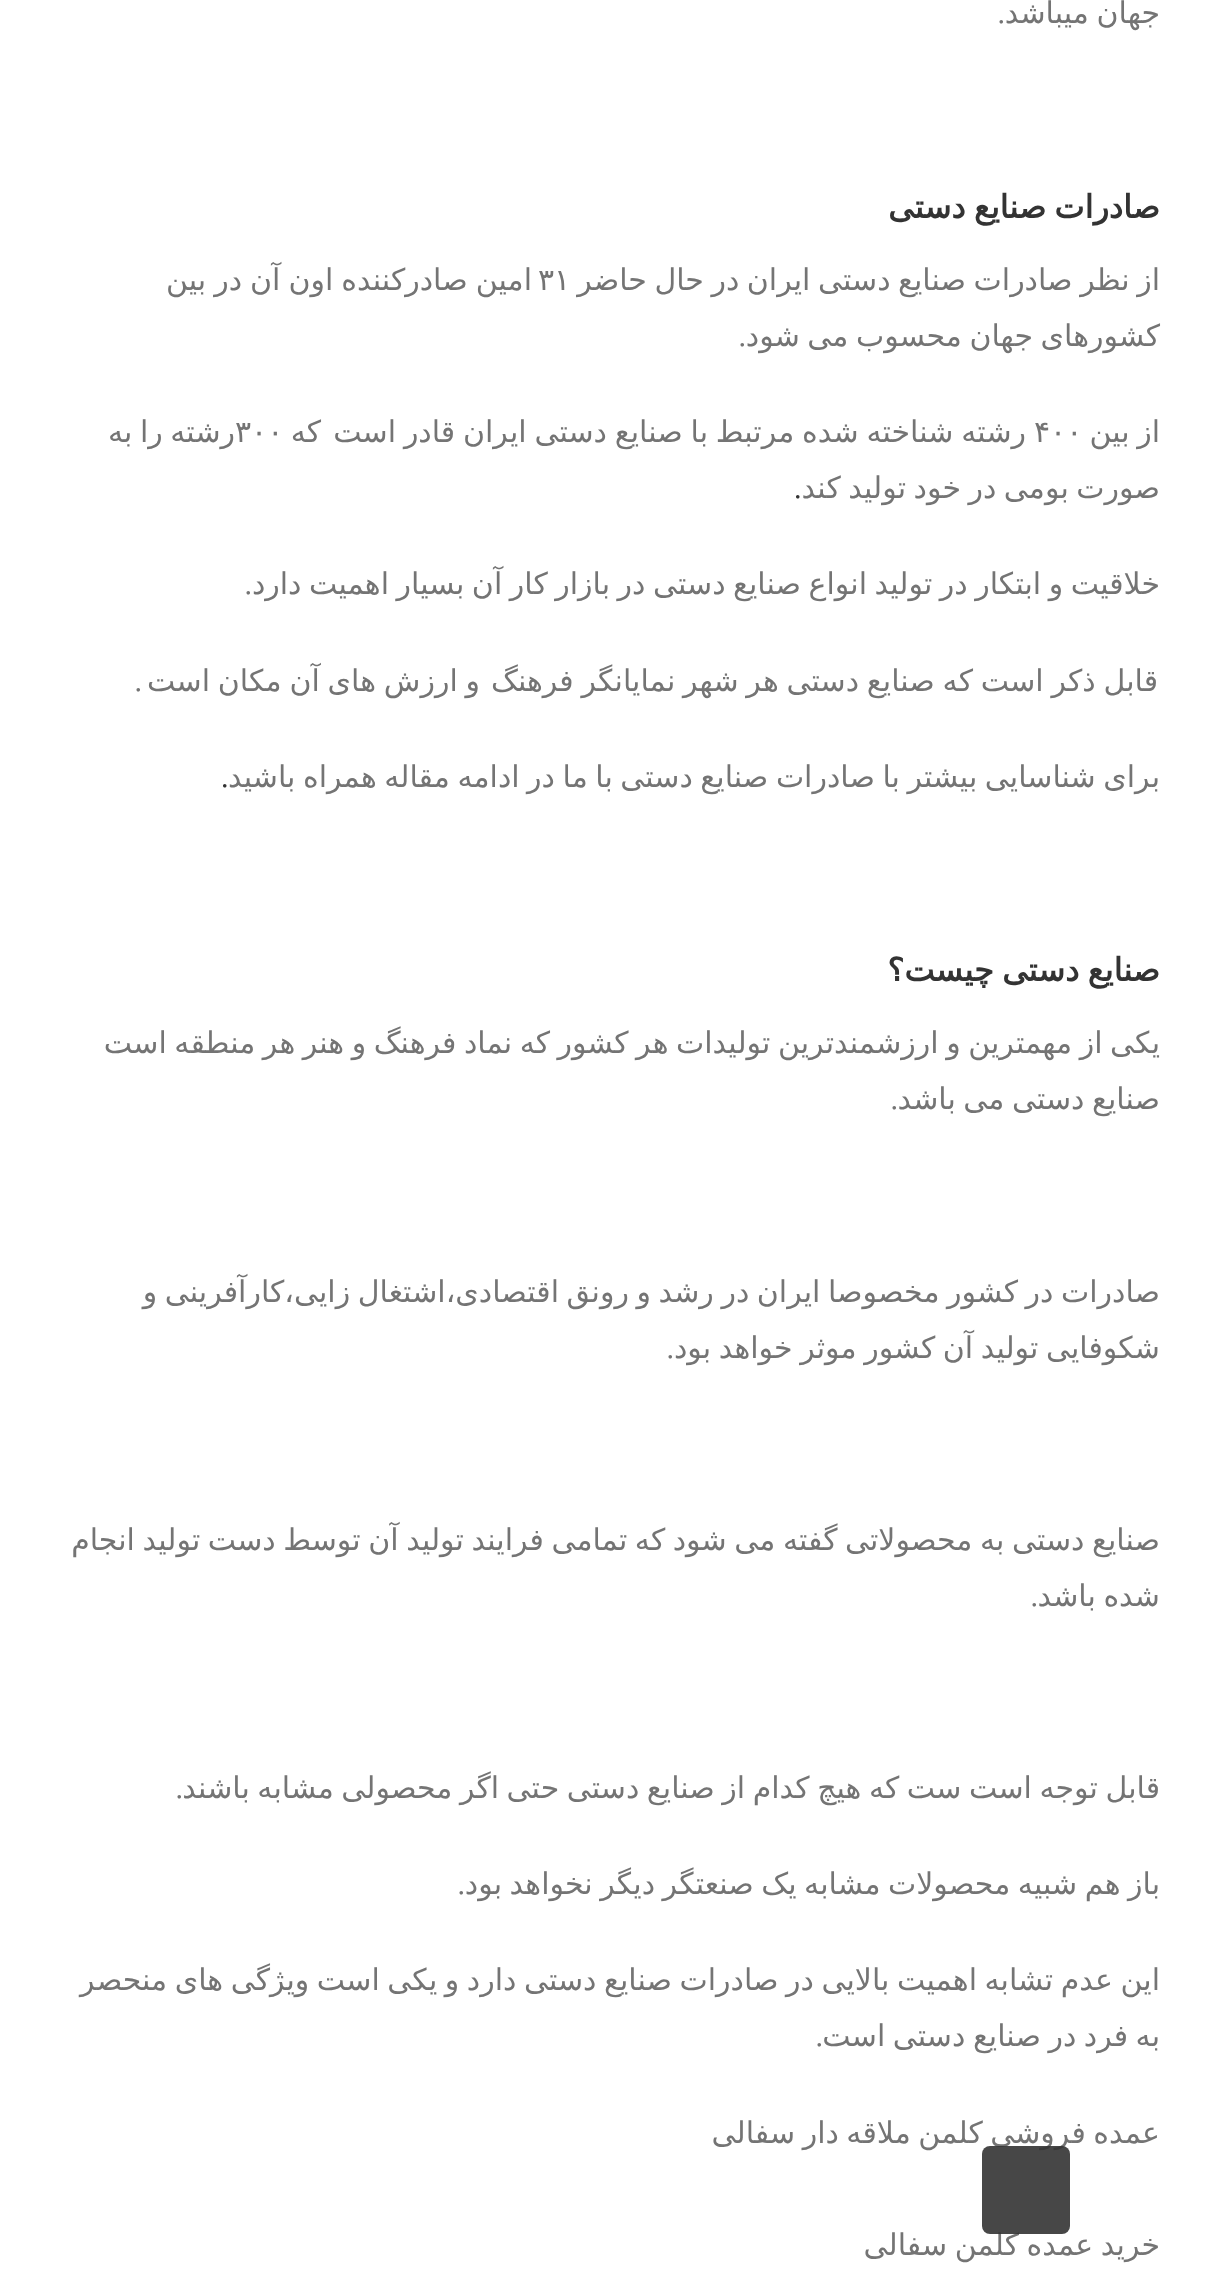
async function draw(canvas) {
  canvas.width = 1219
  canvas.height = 2293
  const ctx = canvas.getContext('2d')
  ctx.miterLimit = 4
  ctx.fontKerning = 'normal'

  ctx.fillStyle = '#fff'
  ctx.fillRect(0, 0, 1219, 2293)
  ctx.wordSpacing = '-2px'
  ctx.direction = 'rtl'
  ctx.font = '30px DejaVu Sans'
  ctx.fillStyle = '#747474'
  ctx.fillText('جهان میباشد', 1160, 23)
  ctx.wordSpacing = '0px'
  ctx.font = '30px Liberation Serif'
  ctx.fillText('.', 1005, 23)
  ctx.wordSpacing = '-2px'
  ctx.font = 'bold 32px DejaVu Sans'
  ctx.fillStyle = '#333'
  ctx.fillText('صادرات صنایع دستی', 1160, 218)
  ctx.font = '30px DejaVu Sans'
  ctx.fillStyle = '#747474'
  ctx.fillText('از نظر صادرات صنایع دستی ایران در حال حاضر', 1160, 290)
  ctx.wordSpacing = '0px'
  ctx.direction = 'ltr'
  ctx.fillText('۳۱', 538, 290)
  ctx.wordSpacing = '-1.5px'
  ctx.direction = 'rtl'
  ctx.fillText('امین صادرکننده اون آن در بین', 532, 290)
  ctx.wordSpacing = '-2px'
  ctx.fillText('کشورهای جهان محسوب می شود', 1160, 346)
  ctx.wordSpacing = '0px'
  ctx.font = '30px Liberation Serif'
  ctx.fillText('.', 746, 346)
  ctx.wordSpacing = '-2px'
  ctx.font = '30px DejaVu Sans'
  ctx.fillText('از بین', 1160, 442)
  ctx.wordSpacing = '-1.75px'
  ctx.fillText('رشته شناخته شده مرتبط با صنایع دستی ایران قادر است', 1026, 442)
  ctx.wordSpacing = '0px'
  ctx.direction = 'ltr'
  ctx.fillText('۴۰۰', 1034, 442)
  ctx.direction = 'rtl'
  ctx.fillText('که', 321, 442)
  ctx.wordSpacing = '-2px'
  ctx.fillText('رشته را به', 235, 442)
  ctx.wordSpacing = '0px'
  ctx.direction = 'ltr'
  ctx.fillText('۳۰۰', 235, 442)
  ctx.wordSpacing = '-2px'
  ctx.direction = 'rtl'
  ctx.fillText('صورت بومی در خود تولید کند', 1160, 498)
  ctx.wordSpacing = '0px'
  ctx.direction = 'ltr'
  ctx.font = '30px Liberation Serif'
  ctx.fillStyle = '#333'
  ctx.fillText('.', 794, 498)
  ctx.wordSpacing = '-2px'
  ctx.direction = 'rtl'
  ctx.font = '30px DejaVu Sans'
  ctx.fillStyle = '#747474'
  ctx.fillText('خلاقیت و ابتکار در تولید انواع صنایع دستی در بازار کار آن بسیار اهمیت دارد', 1160, 594)
  ctx.wordSpacing = '0px'
  ctx.font = '30px Liberation Serif'
  ctx.fillText('.', 252, 594)
  ctx.wordSpacing = '-1.75px'
  ctx.font = '30px DejaVu Sans'
  ctx.fillText('قابل ذکر است که صنایع دستی هر شهر نمایانگر فرهنگ', 1158, 691)
  ctx.fillText('و ارزش های آن مکان است', 480, 691)
  ctx.wordSpacing = '0px'
  ctx.font = '30px Liberation Serif'
  ctx.fillText('.', 142, 691)
  ctx.wordSpacing = '-2px'
  ctx.font = '30px DejaVu Sans'
  ctx.fillText('برای شناسایی بیشتر با صادرات صنایع دستی با ما در ادامه مقاله همراه باشید', 1160, 787)
  ctx.wordSpacing = '0px'
  ctx.direction = 'ltr'
  ctx.font = '30px Liberation Serif'
  ctx.fillStyle = '#333'
  ctx.fillText('.', 221, 787)
  ctx.wordSpacing = '-2px'
  ctx.direction = 'rtl'
  ctx.font = 'bold 32px DejaVu Sans'
  ctx.fillText('صنایع دستی چیست؟', 1160, 981)
  ctx.font = '30px DejaVu Sans'
  ctx.fillStyle = '#747474'
  ctx.fillText('یکی از مهمترین و ارزشمندترین تولیدات هر کشور که نماد فرهنگ و هنر هر منطقه است', 1160, 1053)
  ctx.fillText('صنایع دستی می باشد', 1160, 1109)
  ctx.wordSpacing = '0px'
  ctx.font = '30px Liberation Serif'
  ctx.fillText('.', 898, 1109)
  ctx.wordSpacing = '-2px'
  ctx.font = '30px DejaVu Sans'
  ctx.fillText('صادرات در کشور مخصوصا ایران در رشد و رونق اقتصادی،اشتغال زایی،کارآفرینی و', 1160, 1302)
  ctx.fillText('شکوفایی تولید آن کشور موثر خواهد بود', 1160, 1358)
  ctx.wordSpacing = '0px'
  ctx.font = '30px Liberation Serif'
  ctx.fillText('.', 674, 1358)
  ctx.wordSpacing = '-2px'
  ctx.font = '30px DejaVu Sans'
  ctx.fillText('صنایع دستی به محصولاتی گفته می شود که تمامی فرایند تولید آن توسط دست تولید انجام', 1160, 1550)
  ctx.fillText('شده باشد', 1160, 1606)
  ctx.wordSpacing = '0px'
  ctx.font = '30px Liberation Serif'
  ctx.fillText('.', 1038, 1606)
  ctx.wordSpacing = '-2px'
  ctx.font = '30px DejaVu Sans'
  ctx.fillText('قابل توجه است ست که هیچ کدام از صنایع دستی حتی اگر محصولی مشابه باشند', 1160, 1798)
  ctx.wordSpacing = '0px'
  ctx.font = '30px Liberation Serif'
  ctx.fillText('.', 183, 1798)
  ctx.wordSpacing = '-2px'
  ctx.font = '30px DejaVu Sans'
  ctx.fillText('باز هم شبیه محصولات مشابه یک صنعتگر دیگر نخواهد بود', 1160, 1894)
  ctx.wordSpacing = '0px'
  ctx.font = '30px Liberation Serif'
  ctx.fillText('.', 465, 1894)
  ctx.wordSpacing = '-2px'
  ctx.font = '30px DejaVu Sans'
  ctx.fillText('این عدم تشابه اهمیت بالایی در صادرات صنایع دستی دارد و یکی است ویژگی های منحصر', 1160, 1990)
  ctx.fillText('به فرد در صنایع دستی است', 1160, 2046)
  ctx.wordSpacing = '0px'
  ctx.font = '30px Liberation Serif'
  ctx.fillText('.', 823, 2046)
  ctx.wordSpacing = '-2px'
  ctx.font = '30px DejaVu Sans'
  ctx.fillText('عمده فروشی کلمن ملاقه دار سفالی', 1160, 2143)
  ctx.fillText('خرید عمده کلمن سفالی', 1160, 2255)
  ctx.fillStyle = '#333333e6'
  ctx.beginPath()
  ctx.roundRect(982, 2146, 88, 88, 8)
  ctx.fill()
}

draw(document.querySelector('canvas'))
